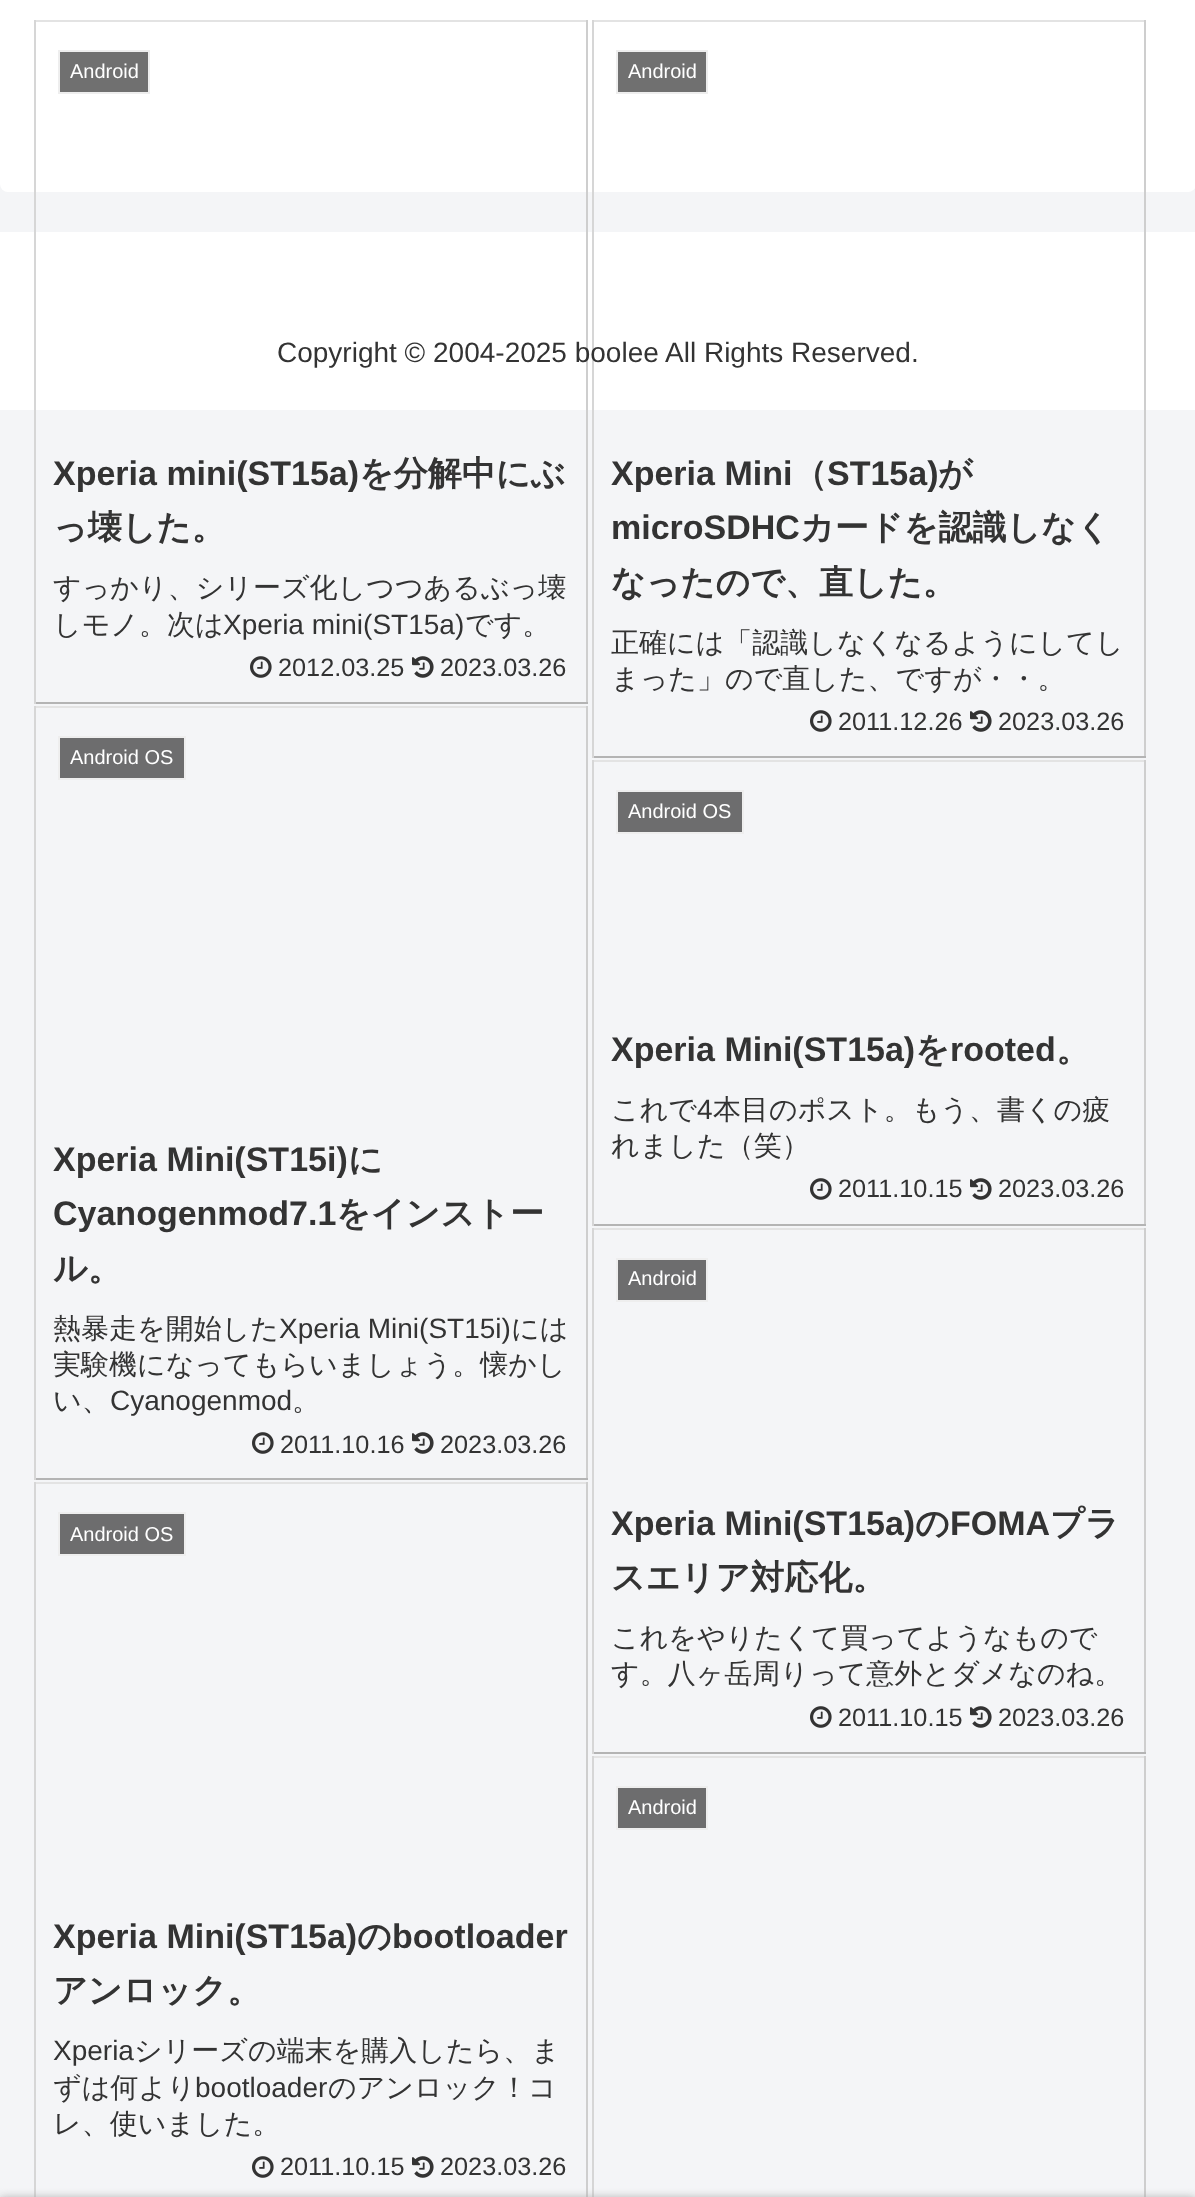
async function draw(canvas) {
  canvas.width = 1195
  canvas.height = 2197
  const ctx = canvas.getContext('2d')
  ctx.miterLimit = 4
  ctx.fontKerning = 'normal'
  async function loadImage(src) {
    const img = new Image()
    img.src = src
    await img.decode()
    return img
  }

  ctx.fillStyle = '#f4f5f7'
  ctx.fillRect(0, 0, 1195, 2197)
  ctx.fillStyle = '#fff'
  ctx.beginPath()
  ctx.roundRect(0, -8, 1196, 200, 8)
  ctx.fill()
  ctx.fillStyle = '#e3e3e3'
  ctx.fillRect(34, 20, 554, 2)
  ctx.fillStyle = '#fff'
  ctx.fillRect(0, 232, 1195, 178)
  ctx.fillStyle = '#cecece'
  ctx.fillRect(586, 20, 2, 684)
  ctx.fillStyle = '#b4b4b4'
  ctx.fillRect(34, 702, 554, 2)
  ctx.fillStyle = '#d6d6d6'
  ctx.fillRect(34, 20, 2, 684)
  ctx.fillStyle = '#707070'
  ctx.beginPath()
  ctx.rect(59, 51, 90, 42)
  ctx.fill()
  ctx.strokeStyle = '#eee'
  ctx.lineWidth = 2
  ctx.stroke()
  ctx.font = '20px Liberation Sans'
  ctx.fillStyle = '#fff'
  ctx.fillText('Android', 70, 78)
  ctx.font = 'bold 34px Liberation Sans'
  ctx.fillStyle = '#333'
  ctx.fillText('Xperia mini(ST15a)', 53, 485)
  ctx.font = 'bold 34px WenQuanYi Zen Hei'
  ctx.fillText('を分解中にぶ', 359, 485)
  ctx.fillText('っ壊した。', 53, 539)
  ctx.font = '500 28px WenQuanYi Zen Hei'
  ctx.fillText('すっかり、シリーズ化しつつあるぶっ壊', 53, 597)
  ctx.fillText('しモノ。次は', 53, 634)
  ctx.font = '28px Liberation Sans'
  ctx.fillText('Xperia mini(ST15a)', 223, 634)
  ctx.font = '500 28px WenQuanYi Zen Hei'
  ctx.fillText('です。', 465, 634)
  ctx.drawImage(await loadImage('image0.png'), 250, 656, 22, 22)
  ctx.font = '25.25px Liberation Sans'
  ctx.fillText('2012.03.25', 278, 676)
  ctx.drawImage(await loadImage('image1.png'), 412, 656, 22, 22)
  ctx.fillText('2023.03.26', 440, 676)
  ctx.fillStyle = '#e3e3e3'
  ctx.fillRect(592, 20, 554, 2)
  ctx.fillStyle = '#cecece'
  ctx.fillRect(1144, 20, 2, 738)
  ctx.fillStyle = '#b4b4b4'
  ctx.fillRect(592, 756, 554, 2)
  ctx.fillStyle = '#d6d6d6'
  ctx.fillRect(592, 20, 2, 738)
  ctx.fillStyle = '#707070'
  ctx.beginPath()
  ctx.rect(617, 51, 90, 42)
  ctx.fill()
  ctx.stroke()
  ctx.font = '20px Liberation Sans'
  ctx.fillStyle = '#fff'
  ctx.fillText('Android', 628, 78)
  ctx.font = 'bold 34px Liberation Sans'
  ctx.fillStyle = '#333'
  ctx.fillText('Xperia Mini', 611, 485)
  ctx.font = 'bold 34px WenQuanYi Zen Hei'
  ctx.fillText('（', 793, 485)
  ctx.font = 'bold 34px Liberation Sans'
  ctx.fillText('ST15a)', 827, 485)
  ctx.font = 'bold 34px WenQuanYi Zen Hei'
  ctx.fillText('が', 938, 485)
  ctx.font = 'bold 34px Liberation Sans'
  ctx.fillText('microSDHC', 611, 539)
  ctx.font = 'bold 34px WenQuanYi Zen Hei'
  ctx.fillText('カードを認識しなく', 800, 539)
  ctx.fillText('なったので、直した。', 611, 594)
  ctx.font = '500 28px WenQuanYi Zen Hei'
  ctx.fillText('正確には「認識しなくなるようにしてし', 611, 652)
  ctx.fillText('まった」ので直した、ですが・・。', 611, 688)
  ctx.drawImage(await loadImage('image0.png'), 810, 710, 22, 22)
  ctx.font = '25.25px Liberation Sans'
  ctx.fillText('2011.12.26', 838, 730)
  ctx.drawImage(await loadImage('image1.png'), 970, 710, 22, 22)
  ctx.fillText('2023.03.26', 998, 730)
  ctx.fillStyle = '#e3e3e3'
  ctx.fillRect(34, 706, 554, 2)
  ctx.fillStyle = '#cecece'
  ctx.fillRect(586, 706, 2, 774)
  ctx.fillStyle = '#b4b4b4'
  ctx.fillRect(34, 1478, 554, 2)
  ctx.fillStyle = '#d6d6d6'
  ctx.fillRect(34, 706, 2, 774)
  ctx.fillStyle = '#6d6d6e'
  ctx.beginPath()
  ctx.rect(59, 737, 126, 42)
  ctx.fill()
  ctx.stroke()
  ctx.font = '20px Liberation Sans'
  ctx.fillStyle = '#fff'
  ctx.fillText('Android OS', 70, 764)
  ctx.font = 'bold 34px Liberation Sans'
  ctx.fillStyle = '#333'
  ctx.fillText('Xperia Mini(ST15i)', 53, 1171)
  ctx.font = 'bold 34px WenQuanYi Zen Hei'
  ctx.fillText('に', 348, 1171)
  ctx.font = 'bold 34px Liberation Sans'
  ctx.fillText('Cyanogenmod7.1', 53, 1225)
  ctx.font = 'bold 34px WenQuanYi Zen Hei'
  ctx.fillText('をインストー', 336, 1225)
  ctx.fillText('ル。', 53, 1280)
  ctx.font = '500 28px WenQuanYi Zen Hei'
  ctx.fillText('熱暴走を開始した', 53, 1338)
  ctx.font = '28px Liberation Sans'
  ctx.fillText('Xperia Mini(ST15i)', 279, 1338)
  ctx.font = '500 28px WenQuanYi Zen Hei'
  ctx.fillText('には', 511, 1338)
  ctx.fillText('実験機になってもらいましょう。懐かし', 53, 1374)
  ctx.fillText('い、', 53, 1410)
  ctx.font = '28px Liberation Sans'
  ctx.fillText('Cyanogenmod', 110, 1410)
  ctx.font = '500 28px WenQuanYi Zen Hei'
  ctx.fillText('。', 292, 1410)
  ctx.drawImage(await loadImage('image0.png'), 252, 1432, 22, 22)
  ctx.font = '25.25px Liberation Sans'
  ctx.fillText('2011.10.16', 280, 1453)
  ctx.drawImage(await loadImage('image1.png'), 412, 1432, 22, 22)
  ctx.fillText('2023.03.26', 440, 1453)
  ctx.fillStyle = '#e3e3e3'
  ctx.fillRect(592, 760, 554, 2)
  ctx.fillStyle = '#cecece'
  ctx.fillRect(1144, 760, 2, 466)
  ctx.fillStyle = '#b4b4b4'
  ctx.fillRect(592, 1224, 554, 2)
  ctx.fillStyle = '#d6d6d6'
  ctx.fillRect(592, 760, 2, 466)
  ctx.fillStyle = '#6d6d6e'
  ctx.beginPath()
  ctx.rect(617, 791, 126, 42)
  ctx.fill()
  ctx.stroke()
  ctx.font = '20px Liberation Sans'
  ctx.fillStyle = '#fff'
  ctx.fillText('Android OS', 628, 818)
  ctx.font = 'bold 34px Liberation Sans'
  ctx.fillStyle = '#333'
  ctx.fillText('Xperia Mini(ST15a)', 611, 1061)
  ctx.font = 'bold 34px WenQuanYi Zen Hei'
  ctx.fillText('を', 915, 1061)
  ctx.font = 'bold 34px Liberation Sans'
  ctx.fillText('rooted', 950, 1061)
  ctx.font = 'bold 34px WenQuanYi Zen Hei'
  ctx.fillText('。', 1056, 1061)
  ctx.font = '500 28px WenQuanYi Zen Hei'
  ctx.fillText('これで', 611, 1119)
  ctx.font = '28px Liberation Sans'
  ctx.fillText('4', 697, 1119)
  ctx.font = '500 28px WenQuanYi Zen Hei'
  ctx.fillText('本目のポスト。もう、書くの疲', 713, 1119)
  ctx.fillText('れました（笑）', 611, 1155)
  ctx.drawImage(await loadImage('image0.png'), 810, 1178, 22, 22)
  ctx.font = '25.25px Liberation Sans'
  ctx.fillText('2011.10.15', 838, 1197)
  ctx.drawImage(await loadImage('image1.png'), 970, 1178, 22, 22)
  ctx.fillText('2023.03.26', 998, 1197)
  ctx.fillStyle = '#e3e3e3'
  ctx.fillRect(34, 1482, 554, 2)
  ctx.fillStyle = '#cecece'
  ctx.fillRect(586, 1482, 2, 715)
  ctx.fillStyle = '#d6d6d6'
  ctx.fillRect(34, 1482, 2, 715)
  ctx.fillStyle = '#6d6d6e'
  ctx.beginPath()
  ctx.rect(59, 1513, 126, 42)
  ctx.fill()
  ctx.stroke()
  ctx.font = '20px Liberation Sans'
  ctx.fillStyle = '#fff'
  ctx.fillText('Android OS', 70, 1541)
  ctx.font = 'bold 34px Liberation Sans'
  ctx.fillStyle = '#333'
  ctx.fillText('Xperia Mini(ST15a)', 53, 1948)
  ctx.font = 'bold 34px WenQuanYi Zen Hei'
  ctx.fillText('の', 357, 1948)
  ctx.font = 'bold 34px Liberation Sans'
  ctx.fillText('bootloader', 392, 1948)
  ctx.font = 'bold 34px WenQuanYi Zen Hei'
  ctx.fillText('アンロック。', 53, 2002)
  ctx.font = '28px Liberation Sans'
  ctx.fillText('Xperia', 53, 2060)
  ctx.font = '500 28px WenQuanYi Zen Hei'
  ctx.fillText('シリーズの端末を購入したら、ま', 134, 2060)
  ctx.fillText('ずは何より', 53, 2097)
  ctx.font = '28px Liberation Sans'
  ctx.fillText('bootloader', 195, 2097)
  ctx.font = '500 28px WenQuanYi Zen Hei'
  ctx.fillText('のアンロック！コ', 328, 2097)
  ctx.fillText('レ、使いました。', 53, 2133)
  ctx.drawImage(await loadImage('image0.png'), 252, 2156, 22, 22)
  ctx.font = '25.25px Liberation Sans'
  ctx.fillText('2011.10.15', 280, 2175)
  ctx.drawImage(await loadImage('image1.png'), 412, 2156, 22, 22)
  ctx.fillText('2023.03.26', 440, 2175)
  ctx.fillStyle = '#e3e3e3'
  ctx.fillRect(592, 1228, 554, 2)
  ctx.fillStyle = '#cecece'
  ctx.fillRect(1144, 1228, 2, 526)
  ctx.fillStyle = '#b4b4b4'
  ctx.fillRect(592, 1752, 554, 2)
  ctx.fillStyle = '#d6d6d6'
  ctx.fillRect(592, 1228, 2, 526)
  ctx.fillStyle = '#6d6d6e'
  ctx.beginPath()
  ctx.rect(617, 1259, 90, 42)
  ctx.fill()
  ctx.stroke()
  ctx.font = '20px Liberation Sans'
  ctx.fillStyle = '#fff'
  ctx.fillText('Android', 628, 1285)
  ctx.font = 'bold 34px Liberation Sans'
  ctx.fillStyle = '#333'
  ctx.fillText('Xperia Mini(ST15a)', 611, 1535)
  ctx.font = 'bold 34px WenQuanYi Zen Hei'
  ctx.fillText('の', 915, 1535)
  ctx.font = 'bold 34px Liberation Sans'
  ctx.fillText('FOMA', 950, 1535)
  ctx.font = 'bold 34px WenQuanYi Zen Hei'
  ctx.fillText('プラ', 1050, 1535)
  ctx.fillText('スエリア対応化。', 611, 1589)
  ctx.font = '500 28px WenQuanYi Zen Hei'
  ctx.fillText('これをやりたくて買ってようなもので', 611, 1647)
  ctx.fillText('す。八ヶ岳周りって意外とダメなのね。', 611, 1683)
  ctx.drawImage(await loadImage('image0.png'), 810, 1706, 22, 22)
  ctx.font = '25.25px Liberation Sans'
  ctx.fillText('2011.10.15', 838, 1726)
  ctx.drawImage(await loadImage('image1.png'), 970, 1706, 22, 22)
  ctx.fillText('2023.03.26', 998, 1726)
  ctx.fillStyle = '#e3e3e3'
  ctx.fillRect(592, 1756, 554, 2)
  ctx.fillStyle = '#cecece'
  ctx.fillRect(1144, 1756, 2, 441)
  ctx.fillStyle = '#d6d6d6'
  ctx.fillRect(592, 1756, 2, 441)
  ctx.fillStyle = '#6d6d6e'
  ctx.beginPath()
  ctx.rect(617, 1787, 90, 42)
  ctx.fill()
  ctx.stroke()
  ctx.font = '20px Liberation Sans'
  ctx.fillStyle = '#fff'
  ctx.fillText('Android', 628, 1814)
  ctx.font = '28px Liberation Sans'
  ctx.fillStyle = '#333'
  ctx.fillText('Copyright © 2004-2025 boolee All Rights Reserved.', 277, 362)
  ctx.fillStyle = '#a9a9a9'
  ctx.filter = 'blur(5px)'
  ctx.beginPath()
  ctx.rect(0, 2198, 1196, 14)
  ctx.fill()
  ctx.filter = 'none'
}

draw(document.querySelector('canvas'))
